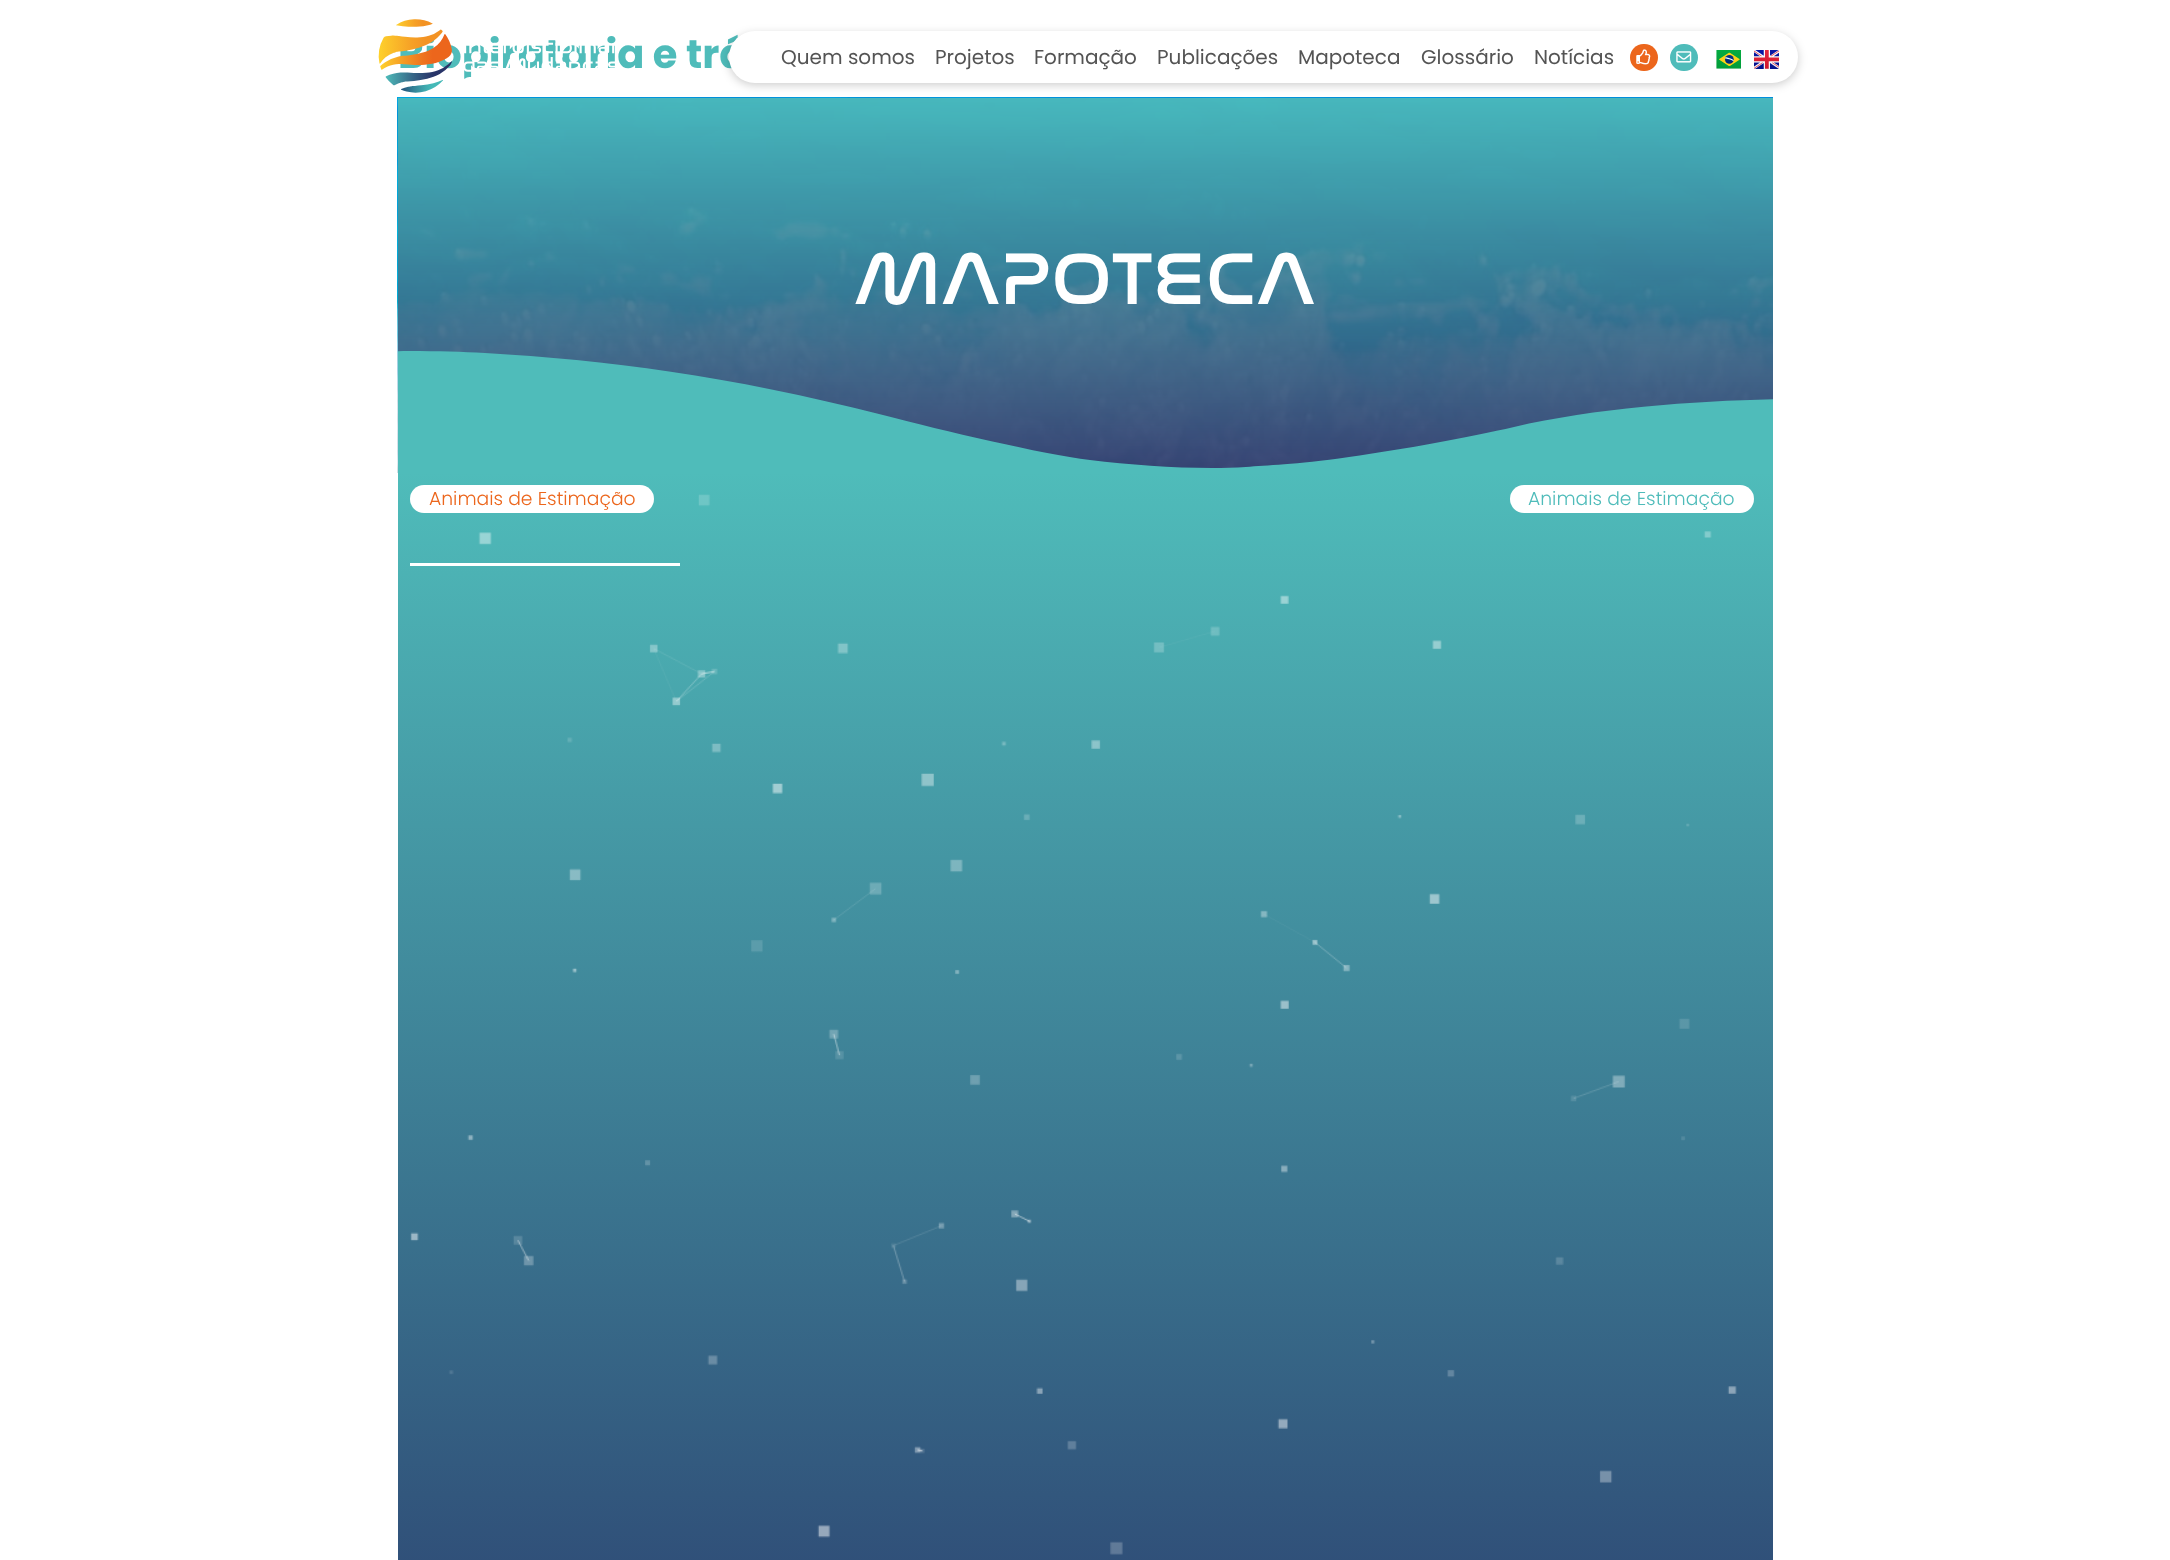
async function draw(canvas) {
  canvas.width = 2170
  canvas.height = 1560
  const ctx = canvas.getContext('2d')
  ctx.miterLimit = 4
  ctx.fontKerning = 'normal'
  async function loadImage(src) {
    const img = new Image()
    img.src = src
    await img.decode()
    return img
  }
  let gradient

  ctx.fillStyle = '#fff'
  ctx.fillRect(0, 0, 2170, 1560)
  ctx.font = 'bold 40px Poppins'
  ctx.fillStyle = '#4fbcba'
  ctx.fillText('Biopirataria e trá', 398, 68)
  ctx.drawImage(await loadImage('image0.png'), 397, 97, 1376, 376)
  ctx.font = '75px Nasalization'
  ctx.fillStyle = '#fff'
  ctx.fillText('MAPOTECA', 854, 304)
  ctx.save()
  ctx.beginPath()
  ctx.rect(398, 349, 1375, 125)
  ctx.clip()
  ctx.fillStyle = '#4fbcba'
  ctx.beginPath()
  ctx.moveTo(1246, 467)
  ctx.bezierCurveTo(1200, 470, 1140, 466, 1090, 460)
  ctx.bezierCurveTo(1042, 454, 944, 431, 883, 415)
  ctx.bezierCurveTo(726, 375, 607, 360, 485, 353)
  ctx.bezierCurveTo(437, 351, 385, 349, 272, 356)
  ctx.bezierCurveTo(159, 364, 53, 388, 53, 388)
  ctx.lineTo(53, 475)
  ctx.lineTo(2117, 475)
  ctx.lineTo(2117, 437)
  ctx.bezierCurveTo(2117, 437, 1968, 396, 1790, 399)
  ctx.bezierCurveTo(1709, 400, 1599, 407, 1514, 427)
  ctx.bezierCurveTo(1470, 437, 1406, 449, 1349, 457)
  ctx.bezierCurveTo(1293, 465, 1267, 465, 1246, 467)
  ctx.closePath()
  ctx.fill()
  ctx.restore()
  gradient = ctx.createLinearGradient(1085, 472, 1085, 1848)
  gradient.addColorStop(0, '#4fbcba')
  gradient.addColorStop(1, '#283468')
  ctx.fillStyle = gradient
  ctx.fillRect(398, 474, 1375, 1086)
  ctx.drawImage(await loadImage('image1.png'), 410, 494, 1327, 1061)
  ctx.fillStyle = '#fff'
  ctx.beginPath()
  ctx.roundRect(410, 485, 244, 28, 14)
  ctx.fill()
  ctx.font = '300 18.75px Poppins'
  ctx.fillStyle = '#ec661c'
  ctx.fillText('Animais de Estimação', 429, 505)
  ctx.fillStyle = '#fff'
  ctx.beginPath()
  ctx.roundRect(1510, 485, 244, 28, 14)
  ctx.fill()
  ctx.fillStyle = '#4fbcba'
  ctx.fillText('Animais de Estimação', 1528, 505)
  ctx.fillStyle = '#fff'
  ctx.fillRect(410, 563, 270, 3)
  ctx.drawImage(await loadImage('image2.png'), 378, 19, 237, 74)
  ctx.fillStyle = '#00000033'
  ctx.filter = 'blur(5px)'
  ctx.beginPath()
  ctx.roundRect(729, 34, 1069, 51, 25.5)
  ctx.fill()
  ctx.filter = 'none'
  ctx.fillStyle = '#fff'
  ctx.beginPath()
  ctx.roundRect(729, 31, 1069, 52, 26)
  ctx.fill()
  ctx.font = '20px Poppins'
  ctx.fillStyle = '#545454'
  ctx.fillText('Quem somos', 781, 64)
  ctx.fillText('Projetos', 935, 64)
  ctx.fillText('Formação', 1034, 64)
  ctx.fillText('Publicações', 1157, 64)
  ctx.fillText('Mapoteca', 1298, 64)
  ctx.fillText('Glossário', 1421, 64)
  ctx.fillText('Notícias', 1534, 64)
  ctx.fillStyle = '#ec661c'
  ctx.beginPath()
  ctx.roundRect(1630, 44, 28, 27, 13.5)
  ctx.fill()
  ctx.drawImage(await loadImage('image3.png'), 1636, 49, 15, 16)
  ctx.fillStyle = '#4fbcba'
  ctx.beginPath()
  ctx.roundRect(1670, 44, 28, 27, 13.5)
  ctx.fill()
  ctx.drawImage(await loadImage('image4.png'), 1676, 51, 16, 12)
  ctx.drawImage(await loadImage('image5.png'), 1716, 50, 25, 19)
  ctx.drawImage(await loadImage('image6.png'), 1754, 50, 25, 19)
}

draw(document.querySelector('canvas'))
